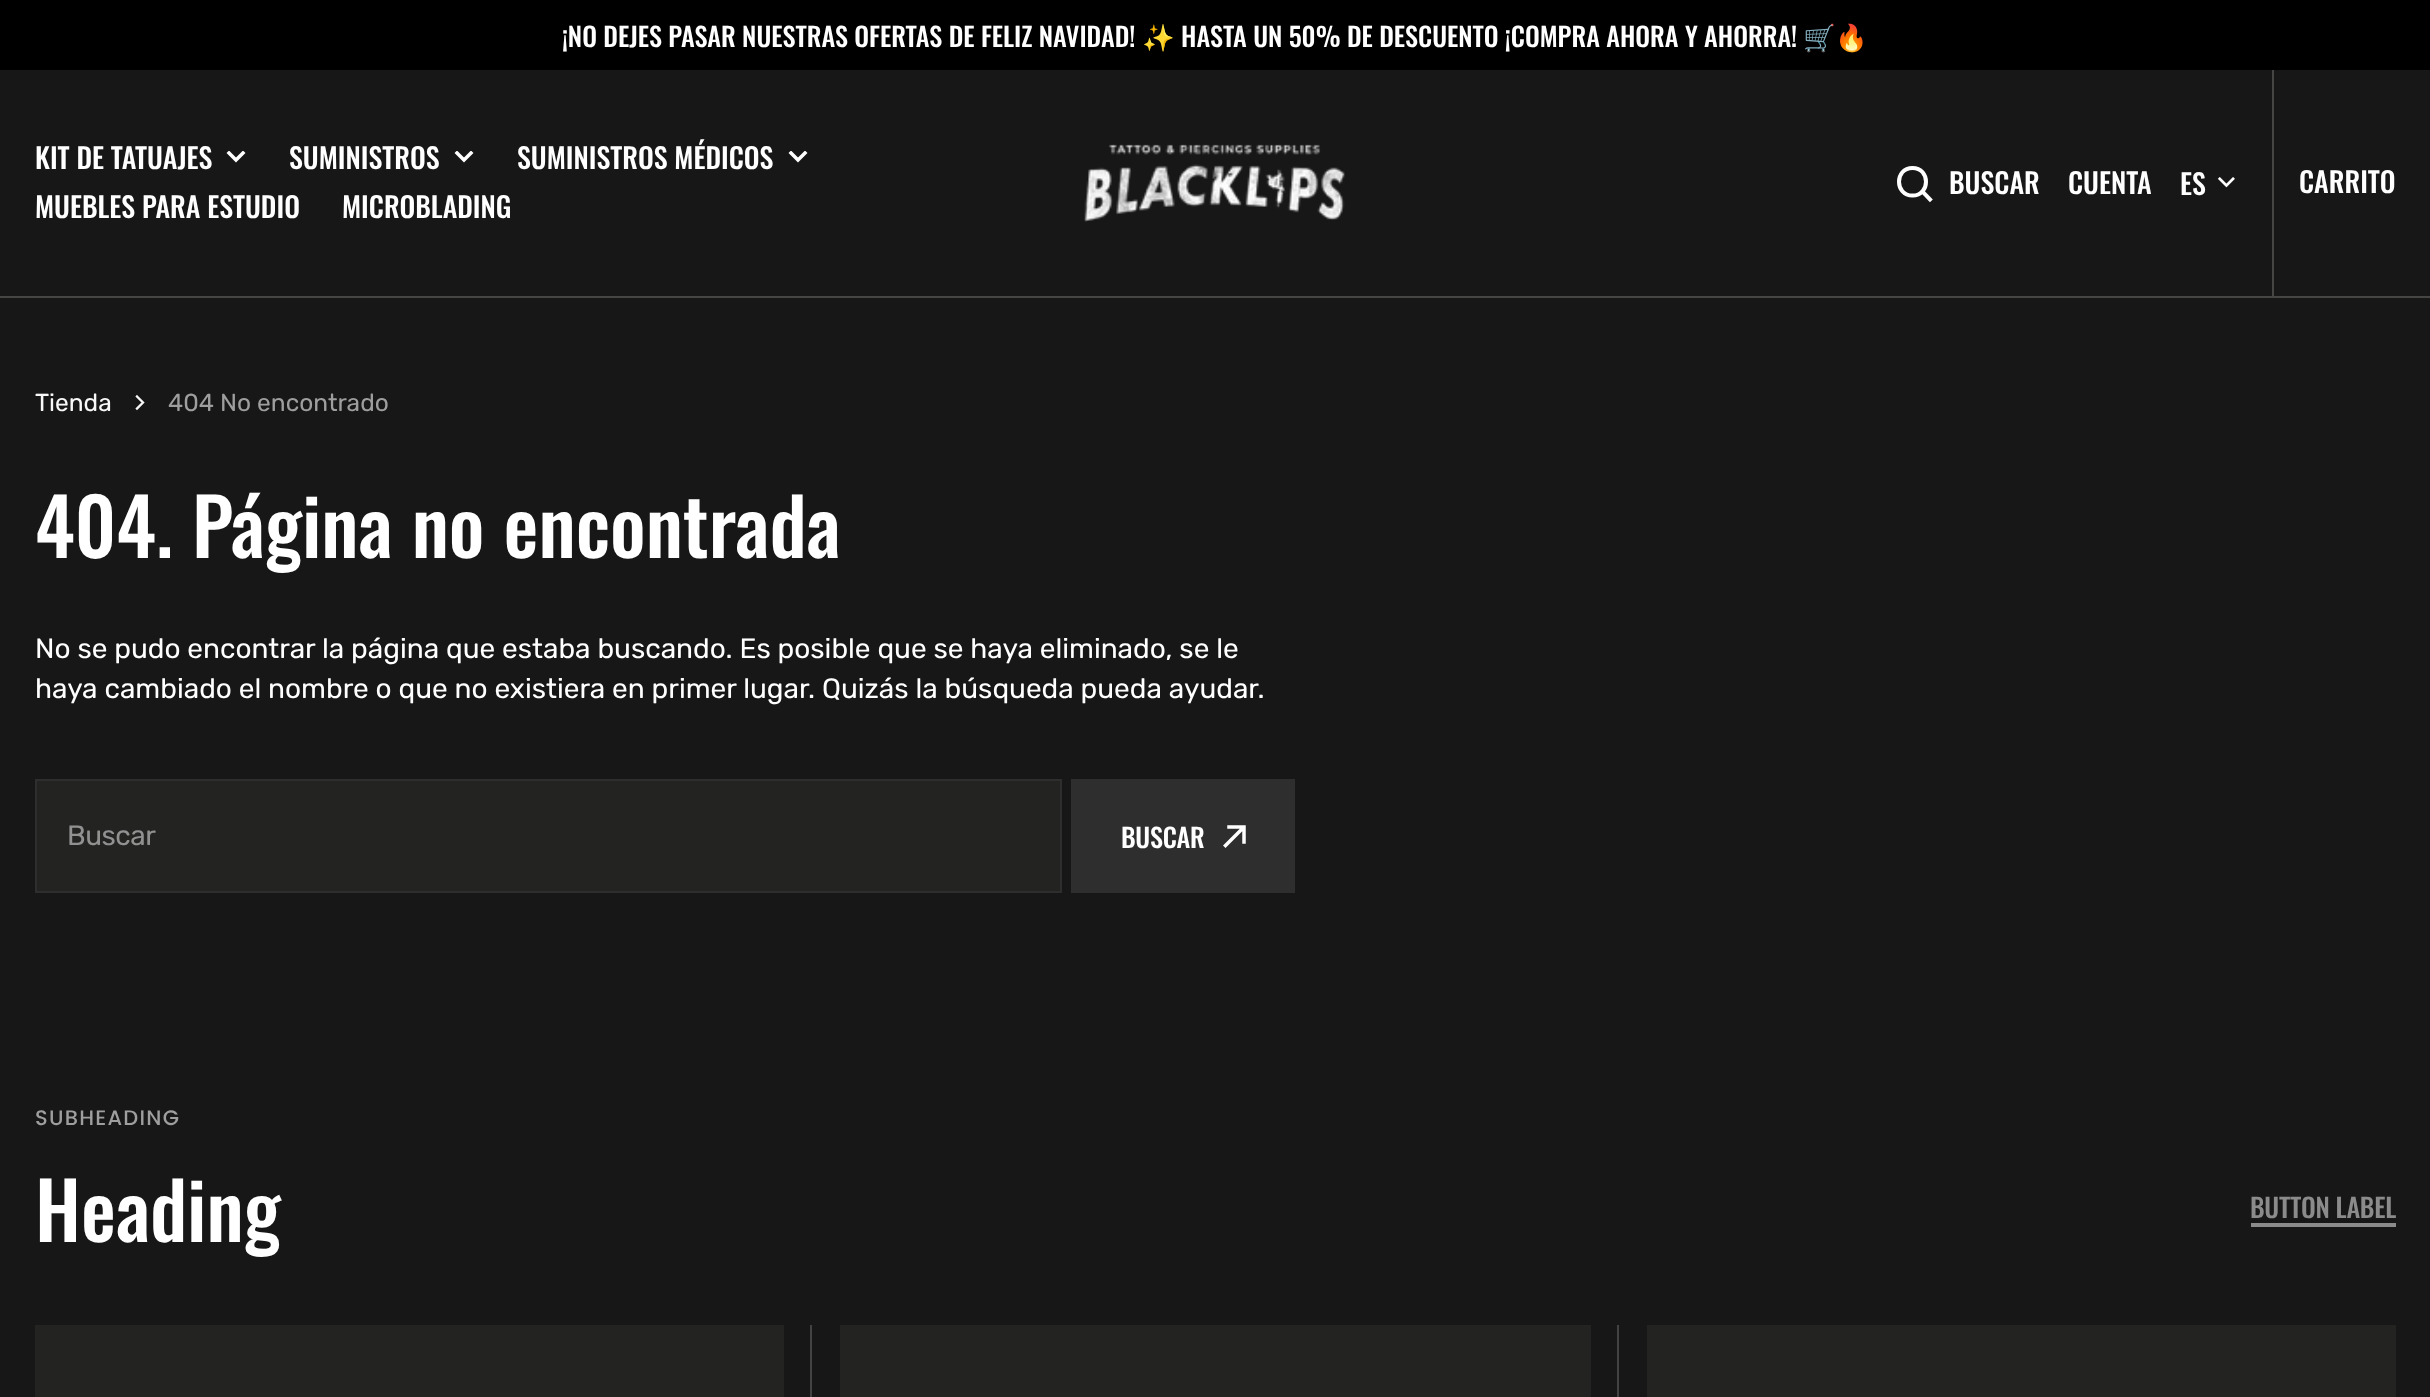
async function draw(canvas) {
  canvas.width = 2430
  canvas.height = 1397
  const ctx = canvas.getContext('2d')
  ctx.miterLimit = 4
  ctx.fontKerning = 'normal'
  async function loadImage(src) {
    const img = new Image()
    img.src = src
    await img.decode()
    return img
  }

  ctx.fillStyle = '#171717'
  ctx.fillRect(0, 0, 2430, 1397)
  ctx.fillStyle = '#000'
  ctx.fillRect(0, 0, 2430, 70)
  ctx.font = '500 26.25px Oswald'
  ctx.fillStyle = '#fff'
  ctx.fillText('¡NO DEJES PASAR NUESTRAS OFERTAS DE FELIZ NAVIDAD!', 562, 47)
  ctx.font = '26.25px Noto Color Emoji'
  ctx.fillText('✨', 1142, 47)
  ctx.font = '500 26.25px Oswald'
  ctx.fillText('HASTA UN 50% DE DESCUENTO ¡COMPRA AHORA Y AHORRA!', 1181, 47)
  ctx.font = '26.25px Noto Color Emoji'
  ctx.fillText('🛒🔥', 1803, 47)
  ctx.fillStyle = '#454544'
  ctx.fillRect(0, 296, 2430, 2)
  ctx.font = '500 28px Oswald'
  ctx.fillStyle = '#fff'
  ctx.fillText('KIT DE TATUAJES', 35, 169)
  ctx.save()
  ctx.beginPath()
  ctx.rect(226, 151, 21, 12)
  ctx.clip()
  ctx.beginPath()
  ctx.moveTo(243, 153)
  ctx.lineTo(236, 160)
  ctx.lineTo(229, 153)
  ctx.strokeStyle = '#fff'
  ctx.lineWidth = 3.5
  ctx.lineCap = 'square'
  ctx.stroke()
  ctx.restore()
  ctx.fillText('SUMINISTROS', 289, 169)
  ctx.save()
  ctx.beginPath()
  ctx.rect(453, 151, 21, 12)
  ctx.clip()
  ctx.beginPath()
  ctx.moveTo(471, 153)
  ctx.lineTo(464, 160)
  ctx.lineTo(457, 153)
  ctx.strokeStyle = '#fff'
  ctx.lineWidth = 3.5
  ctx.lineCap = 'square'
  ctx.stroke()
  ctx.restore()
  ctx.fillText('SUMINISTROS MÉDICOS', 517, 169)
  ctx.save()
  ctx.beginPath()
  ctx.rect(788, 151, 21, 12)
  ctx.clip()
  ctx.beginPath()
  ctx.moveTo(805, 153)
  ctx.lineTo(798, 160)
  ctx.lineTo(791, 153)
  ctx.strokeStyle = '#fff'
  ctx.lineWidth = 3.5
  ctx.lineCap = 'square'
  ctx.stroke()
  ctx.restore()
  ctx.fillText('MUEBLES PARA ESTUDIO', 35, 218)
  ctx.fillText('MICROBLADING', 342, 218)
  ctx.drawImage(await loadImage('image0.png'), 1084, 144, 261, 78)
  ctx.beginPath()
  ctx.moveTo(1912.5, 195.5)
  ctx.bezierCurveTo(1930.5, 195.5, 1930.5, 168, 1912.5, 168)
  ctx.bezierCurveTo(1894.5, 168, 1894.5, 195.5, 1912.5, 195.5)
  ctx.closePath()
  ctx.strokeStyle = '#fff'
  ctx.lineWidth = 4
  ctx.lineCap = 'round'
  ctx.lineJoin = 'round'
  ctx.stroke()
  ctx.beginPath()
  ctx.moveTo(1922.5, 191.5)
  ctx.lineTo(1930, 199.5)
  ctx.lineCap = 'square'
  ctx.stroke()
  ctx.fillText('BUSCAR', 1949, 194)
  ctx.fillText('CUENTA', 2068, 194)
  ctx.fillText('ES', 2180, 195)
  ctx.drawImage(await loadImage('image1.png'), 2217, 177, 18, 11)
  ctx.fillStyle = '#454544'
  ctx.fillRect(2272, 70, 2, 228)
  ctx.fillStyle = '#fff'
  ctx.fillText('CARRITO', 2299, 193)
  ctx.font = '24.5px Rubik'
  ctx.fillStyle = '#f8f8f8'
  ctx.fillText('Tienda', 35, 411)
  ctx.beginPath()
  ctx.moveTo(137, 396.5)
  ctx.lineTo(143, 402.5)
  ctx.lineTo(137, 408.5)
  ctx.strokeStyle = '#f8f8f8'
  ctx.lineWidth = 2.3
  ctx.lineJoin = 'miter'
  ctx.stroke()
  ctx.fillStyle = '#9e9e9e'
  ctx.fillText('404 No encontrado', 168, 411)
  ctx.font = '500 78.4px Oswald'
  ctx.fillStyle = '#fff'
  ctx.fillText('404. Página no encontrada', 35, 558)
  ctx.font = '28px Rubik'
  ctx.fillText('No se pudo encontrar la página que estaba buscando. Es posible que se haya eliminado, se le', 35, 658)
  ctx.fillText('haya cambiado el nombre o que no existiera en primer lugar. Quizás la búsqueda pueda ayudar.', 35, 698)
  ctx.fillStyle = '#232322'
  ctx.beginPath()
  ctx.rect(36, 780, 1025, 112)
  ctx.fill()
  ctx.strokeStyle = '#2e2e2e'
  ctx.lineWidth = 2
  ctx.stroke()
  ctx.letterSpacing = '-0.5px'
  ctx.fillStyle = '#919191'
  ctx.fillText('Buscar', 67, 845)
  ctx.fillStyle = '#2e2e2e'
  ctx.fillRect(1071, 779, 224, 114)
  ctx.letterSpacing = '-0.25px'
  ctx.font = '500 26.25px Oswald'
  ctx.fillStyle = '#fff'
  ctx.fillText('BUSCAR', 1121, 848)
  ctx.beginPath()
  ctx.moveTo(1225.5, 845.5)
  ctx.lineTo(1242.5, 828.5)
  ctx.moveTo(1229, 827)
  ctx.lineTo(1244, 827)
  ctx.lineTo(1244, 842)
  ctx.strokeStyle = '#fff'
  ctx.lineWidth = 3.5
  ctx.stroke()
  ctx.letterSpacing = '1.25px'
  ctx.font = '500 21px Poppins'
  ctx.fillStyle = '#9e9e9e'
  ctx.fillText('SUBHEADING', 35, 1125)
  ctx.letterSpacing = '0px'
  ctx.font = '500 78.4px Oswald'
  ctx.fillStyle = '#fff'
  ctx.fillText('Heading', 35, 1242)
  ctx.letterSpacing = '-0.25px'
  ctx.font = '500 26.25px Oswald'
  ctx.fillStyle = '#8b8b8b'
  ctx.fillText('BUTTON LABEL', 2250, 1218)
  ctx.fillRect(2251, 1223, 145, 4)
  ctx.fillStyle = '#232322'
  ctx.fillRect(35, 1325, 749, 72)
  ctx.fillStyle = '#434343'
  ctx.fillRect(810, 1325, 2, 72)
  ctx.fillStyle = '#232322'
  ctx.fillRect(840, 1325, 751, 72)
  ctx.fillStyle = '#434343'
  ctx.fillRect(1617, 1325, 2, 72)
  ctx.fillStyle = '#232322'
  ctx.fillRect(1647, 1325, 749, 72)
}

draw(document.querySelector('canvas'))
